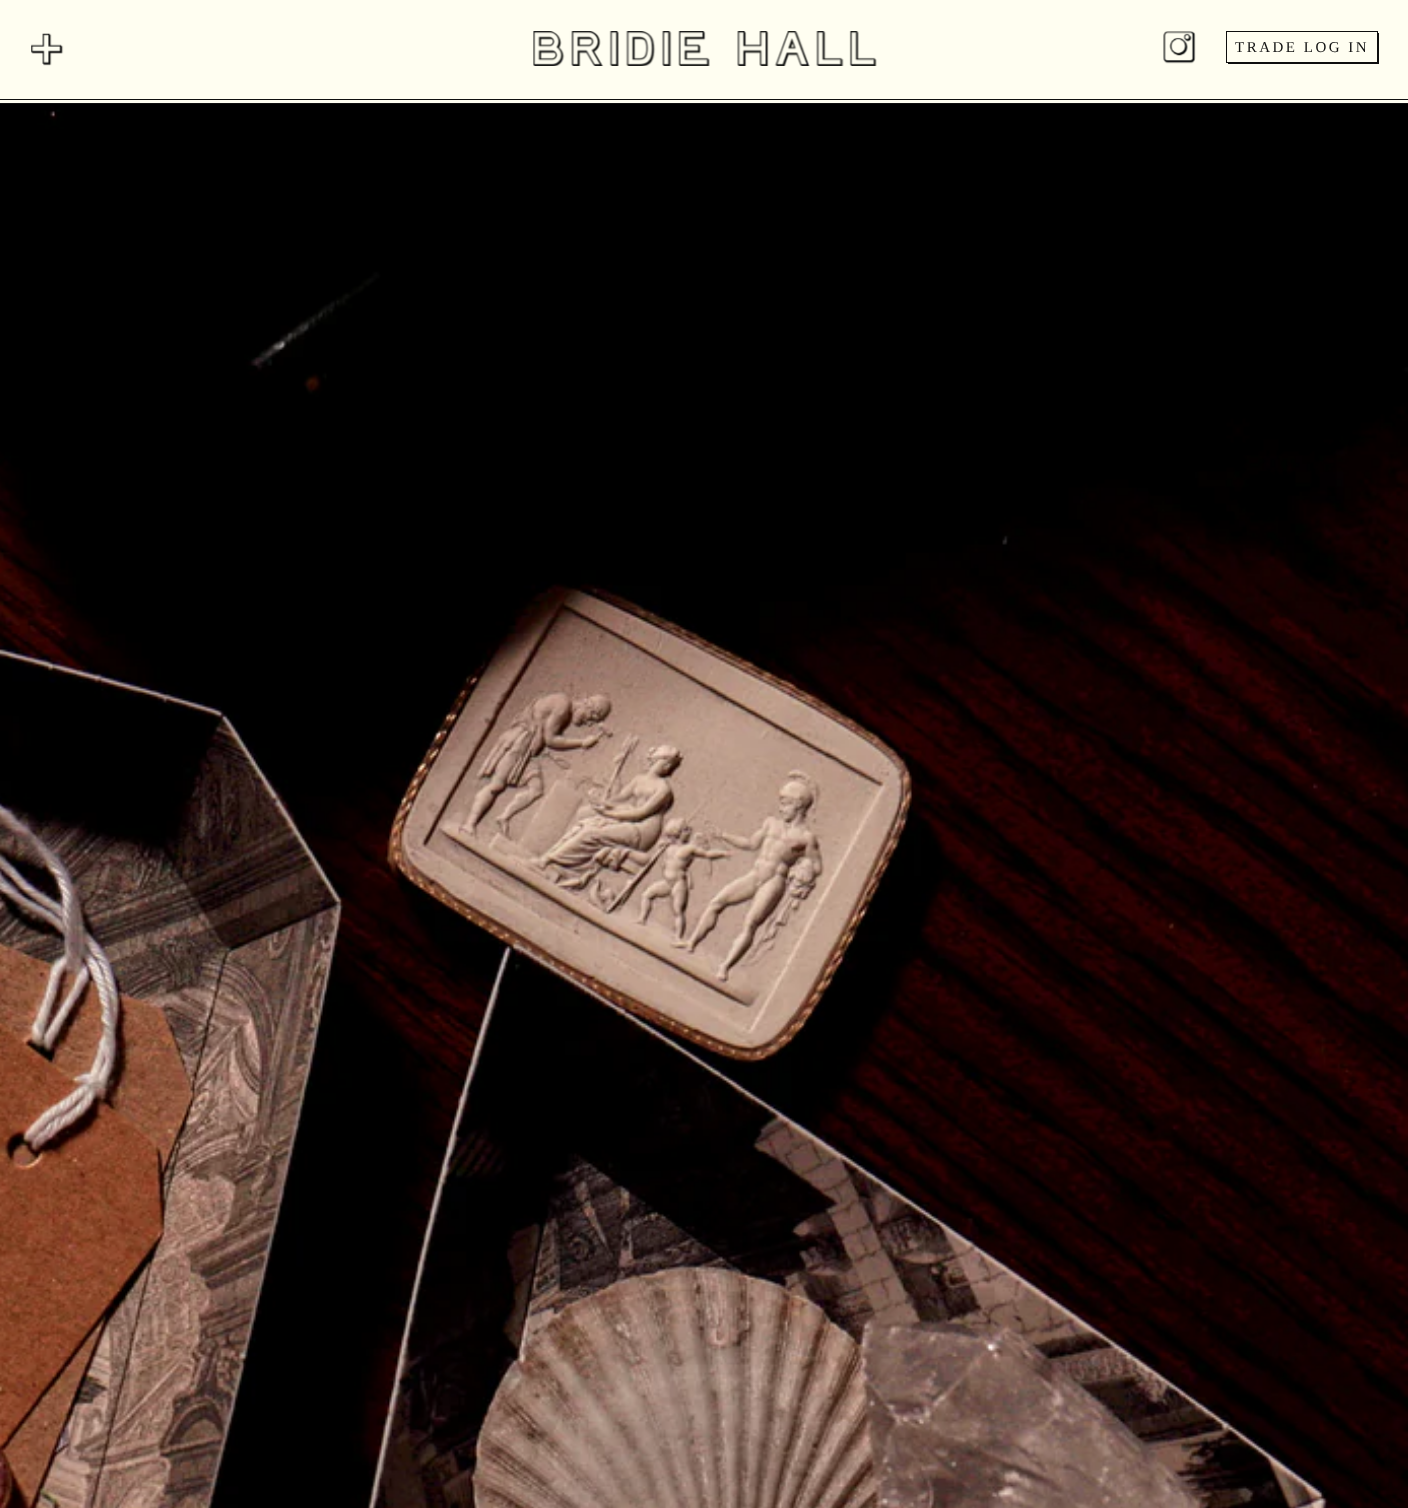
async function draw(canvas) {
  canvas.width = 1408
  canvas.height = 1508
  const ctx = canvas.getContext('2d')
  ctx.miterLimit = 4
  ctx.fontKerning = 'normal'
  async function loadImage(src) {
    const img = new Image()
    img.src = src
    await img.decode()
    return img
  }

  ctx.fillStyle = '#fff'
  ctx.fillRect(0, 0, 1408, 1508)
  ctx.fillStyle = '#fffef1'
  ctx.fillRect(0, 0, 1408, 103)
  ctx.fillStyle = '#111'
  ctx.fillRect(0, 103, 1408, 1)
  ctx.drawImage(await loadImage('image0.png'), 31, 33, 33, 33)
  ctx.drawImage(await loadImage('image1.png'), 533, 31, 344, 35)
  ctx.drawImage(await loadImage('image2.png'), 1163, 31, 33, 33)
  ctx.fillStyle = '#0e0e0e'
  ctx.beginPath()
  ctx.moveTo(1228, 62)
  ctx.lineTo(1228, 64)
  ctx.lineTo(1379, 64)
  ctx.lineTo(1379, 33)
  ctx.lineTo(1378, 33)
  ctx.lineTo(1378, 62)
  ctx.closePath()
  ctx.fill()
  ctx.strokeStyle = '#0e0e0e'
  ctx.strokeRect(1226.5, 31.5, 151, 31)
  ctx.letterSpacing = '2.5px'
  ctx.font = '15px Liberation Serif'
  ctx.fillStyle = '#111'
  ctx.fillText('TRADE LOG IN', 1235, 52)
  ctx.fillRect(0, 99, 1408, 1)
  ctx.drawImage(await loadImage('image3.png'), 0, 104, 1408, 1404)
}

draw(document.querySelector('canvas'))
